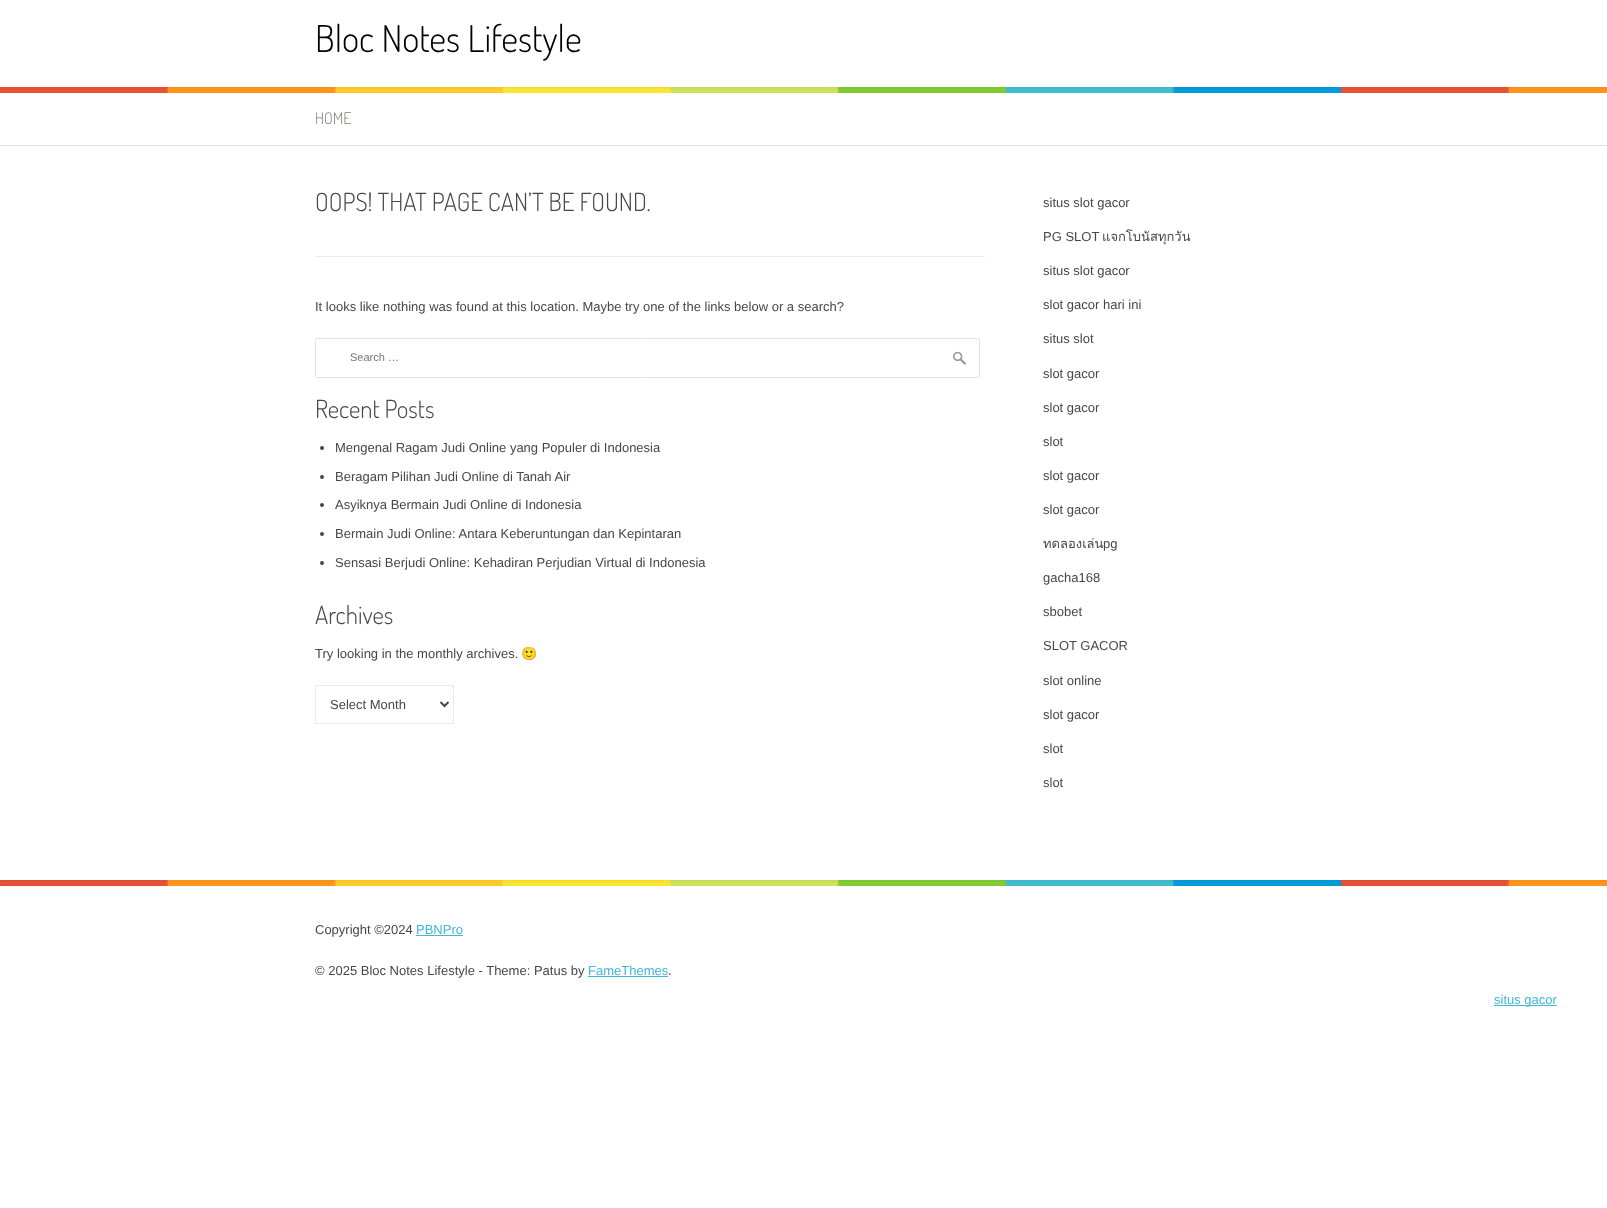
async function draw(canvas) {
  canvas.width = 1607
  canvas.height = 1208
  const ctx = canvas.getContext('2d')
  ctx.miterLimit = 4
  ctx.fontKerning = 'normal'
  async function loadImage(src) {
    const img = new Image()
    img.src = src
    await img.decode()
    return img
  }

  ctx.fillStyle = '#fff'
  ctx.fillRect(0, 0, 1607, 1208)
  ctx.font = '300 37px Dosis'
  ctx.fillStyle = '#000'
  ctx.fillText('Bloc Notes Lifestyle', 315, 52)
  ctx.drawImage(await loadImage('image0.png'), 0, 87, 1607, 6)
  ctx.fillStyle = '#e2e2e2'
  ctx.fillRect(0, 145, 1607, 1)
  ctx.font = '300 16px Dosis'
  ctx.fillStyle = '#7e7e75'
  ctx.fillText('HOME', 315, 124)
  ctx.fillStyle = '#eaeaea'
  ctx.fillRect(315, 256, 670, 1)
  ctx.font = '300 25px Dosis'
  ctx.fillStyle = '#474747'
  ctx.fillText('OOPS! THAT PAGE CAN’T BE FOUND.', 315, 211)
  ctx.font = '13px Liberation Sans'
  ctx.fillText('It looks like nothing was found at this location. Maybe try one of the links below or a search?', 315, 311)
  ctx.drawImage(await loadImage('image1.png'), 953, 351, 13, 14)
  ctx.beginPath()
  ctx.roundRect(315.5, 338.5, 664, 39, 1.5)
  ctx.strokeStyle = '#e2e2e2'
  ctx.stroke()
  ctx.font = '11px Liberation Sans'
  ctx.fillStyle = '#757575'
  ctx.fillText('Search …', 350, 361)
  ctx.font = '300 25px Dosis'
  ctx.fillStyle = '#474747'
  ctx.fillText('Recent Posts', 315, 418)
  ctx.beginPath()
  ctx.arc(322, 448, 2, 0, 2 * Math.PI)
  ctx.fill()
  ctx.font = '13px Liberation Sans'
  ctx.fillText('Mengenal Ragam Judi Online yang Populer di Indonesia', 335, 452)
  ctx.beginPath()
  ctx.arc(322, 477, 2, 0, 2 * Math.PI)
  ctx.fill()
  ctx.fillText('Beragam Pilihan Judi Online di Tanah Air', 335, 481)
  ctx.beginPath()
  ctx.arc(322, 505, 2, 0, 2 * Math.PI)
  ctx.fill()
  ctx.fillText('Asyiknya Bermain Judi Online di Indonesia', 335, 509)
  ctx.beginPath()
  ctx.arc(322, 534, 2, 0, 2 * Math.PI)
  ctx.fill()
  ctx.fillText('Bermain Judi Online: Antara Keberuntungan dan Kepintaran', 335, 538)
  ctx.beginPath()
  ctx.arc(322, 563, 2, 0, 2 * Math.PI)
  ctx.fill()
  ctx.fillText('Sensasi Berjudi Online: Kehadiran Perjudian Virtual di Indonesia', 335, 567)
  ctx.font = '300 25px Dosis'
  ctx.fillText('Archives', 315, 624)
  ctx.font = '13px Liberation Sans'
  ctx.fillText('Try looking in the monthly archives.', 315, 658)
  ctx.font = '13px Noto Color Emoji'
  ctx.fillText('🙂', 521, 658)
  ctx.strokeStyle = '#eaeaea'
  ctx.strokeRect(315.5, 685.5, 138, 38)
  ctx.beginPath()
  ctx.moveTo(440.5, 702)
  ctx.lineTo(444.5, 706)
  ctx.lineTo(448.5, 702)
  ctx.strokeStyle = '#474747'
  ctx.lineWidth = 2
  ctx.stroke()
  ctx.font = '13px Liberation Sans'
  ctx.fillText('Select Month', 330, 709)
  ctx.fillText('situs slot gacor', 1043, 207)
  ctx.fillText('PG SLOT', 1043, 241)
  ctx.font = '13px Loma'
  ctx.fillText('แจกโบนัสทุกวัน', 1102, 241)
  ctx.font = '13px Liberation Sans'
  ctx.fillText('situs slot gacor', 1043, 275)
  ctx.fillText('slot gacor hari ini', 1043, 309)
  ctx.fillText('situs slot', 1043, 343)
  ctx.fillText('slot gacor', 1043, 378)
  ctx.fillText('slot gacor', 1043, 412)
  ctx.fillText('slot', 1043, 446)
  ctx.fillText('slot gacor', 1043, 480)
  ctx.fillText('slot gacor', 1043, 514)
  ctx.font = '13px Loma'
  ctx.fillText('ทดลองเล่น', 1043, 548)
  ctx.font = '13px Liberation Sans'
  ctx.fillText('pg', 1103, 548)
  ctx.fillText('gacha168', 1043, 582)
  ctx.fillText('sbobet', 1043, 616)
  ctx.fillText('SLOT GACOR', 1043, 650)
  ctx.fillText('slot online', 1043, 685)
  ctx.fillText('slot gacor', 1043, 719)
  ctx.fillText('slot', 1043, 753)
  ctx.fillText('slot', 1043, 787)
  ctx.drawImage(await loadImage('image0.png'), 0, 880, 1607, 6)
  ctx.fillText('Copyright ©2024', 315, 934)
  ctx.fillStyle = '#41b7d8'
  ctx.fillText('PBNPro', 416, 934)
  ctx.fillRect(416, 935, 47, 1)
  ctx.fillStyle = '#474747'
  ctx.fillText('© 2025 Bloc Notes Lifestyle - Theme: Patus by', 315, 975)
  ctx.fillStyle = '#41b7d8'
  ctx.fillText('FameThemes', 588, 975)
  ctx.fillRect(588, 976, 80, 1)
  ctx.fillStyle = '#474747'
  ctx.fillText('.', 668, 975)
  ctx.fillStyle = '#41b7d8'
  ctx.fillRect(1494, 1005, 63, 1)
  ctx.fillText('situs gacor', 1494, 1004)
}

draw(document.querySelector('canvas'))
